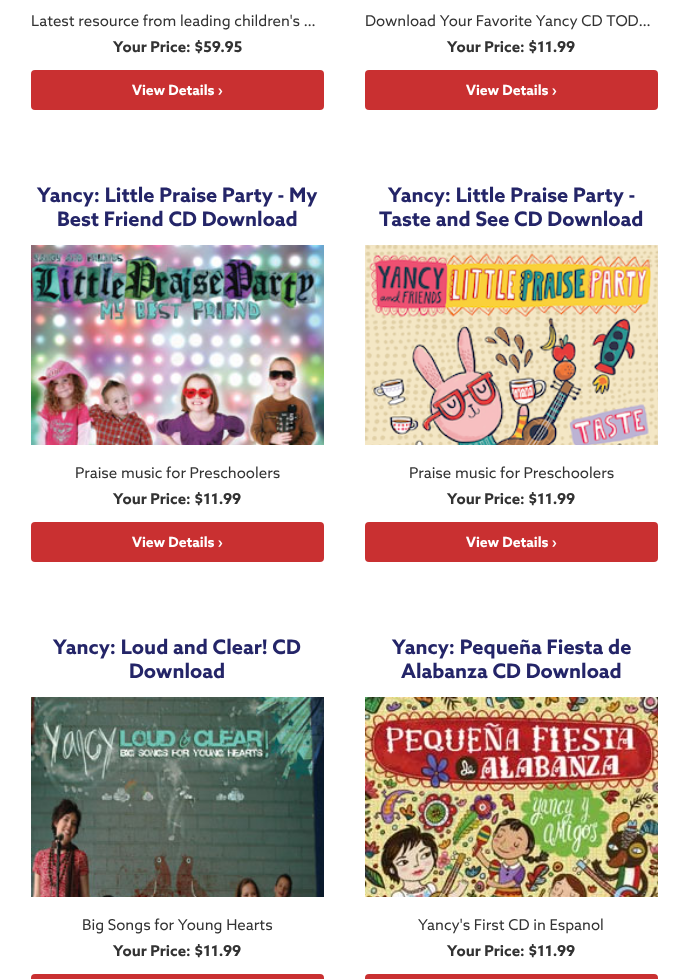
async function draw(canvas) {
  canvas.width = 689
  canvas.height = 979
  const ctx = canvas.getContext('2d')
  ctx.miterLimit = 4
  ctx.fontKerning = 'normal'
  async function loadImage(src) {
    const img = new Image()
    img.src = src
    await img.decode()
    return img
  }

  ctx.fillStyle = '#fff'
  ctx.fillRect(0, 0, 689, 979)
  ctx.font = '15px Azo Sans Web'
  ctx.fillStyle = '#333'
  ctx.fillText('Latest resource from leading children\'s …', 31, 26)
  ctx.font = 'bold 15px Azo Sans Web'
  ctx.fillText('Your Price: $59.95', 113, 52)
  ctx.fillStyle = '#c93031'
  ctx.beginPath()
  ctx.roundRect(31, 70, 293, 40, 4)
  ctx.fill()
  ctx.font = 'bold 14px Azo Sans Web'
  ctx.fillStyle = '#fff'
  ctx.fillText('View Details ›', 132, 95)
  ctx.font = '15px Azo Sans Web'
  ctx.fillStyle = '#333'
  ctx.fillText('Download Your Favorite Yancy CD TOD…', 365, 26)
  ctx.font = 'bold 15px Azo Sans Web'
  ctx.fillText('Your Price: $11.99', 447, 52)
  ctx.fillStyle = '#c93031'
  ctx.beginPath()
  ctx.roundRect(365, 70, 293, 40, 4)
  ctx.fill()
  ctx.font = 'bold 14px Azo Sans Web'
  ctx.fillStyle = '#fff'
  ctx.fillText('View Details ›', 466, 95)
  ctx.font = 'bold 20px Azo Sans Web'
  ctx.fillStyle = '#242568'
  ctx.fillText('Yancy: Little Praise Party - My', 37, 202)
  ctx.fillText('Best Friend CD Download', 57, 226)
  ctx.drawImage(await loadImage('image0.png'), 31, 245, 293, 200)
  ctx.font = '15px Azo Sans Web'
  ctx.fillStyle = '#333'
  ctx.fillText('Praise music for Preschoolers', 75, 478)
  ctx.font = 'bold 15px Azo Sans Web'
  ctx.fillText('Your Price: $11.99', 113, 504)
  ctx.fillStyle = '#c93031'
  ctx.beginPath()
  ctx.roundRect(31, 522, 293, 40, 4)
  ctx.fill()
  ctx.font = 'bold 14px Azo Sans Web'
  ctx.fillStyle = '#fff'
  ctx.fillText('View Details ›', 132, 547)
  ctx.font = 'bold 20px Azo Sans Web'
  ctx.fillStyle = '#242568'
  ctx.fillText('Yancy: Little Praise Party -', 388, 202)
  ctx.fillText('Taste and See CD Download', 379, 226)
  ctx.drawImage(await loadImage('image1.png'), 365, 245, 293, 200)
  ctx.font = '15px Azo Sans Web'
  ctx.fillStyle = '#333'
  ctx.fillText('Praise music for Preschoolers', 409, 478)
  ctx.font = 'bold 15px Azo Sans Web'
  ctx.fillText('Your Price: $11.99', 447, 504)
  ctx.fillStyle = '#c93031'
  ctx.beginPath()
  ctx.roundRect(365, 522, 293, 40, 4)
  ctx.fill()
  ctx.font = 'bold 14px Azo Sans Web'
  ctx.fillStyle = '#fff'
  ctx.fillText('View Details ›', 466, 547)
  ctx.font = 'bold 20px Azo Sans Web'
  ctx.fillStyle = '#242568'
  ctx.fillText('Yancy: Loud and Clear! CD', 53, 654)
  ctx.fillText('Download', 129, 678)
  ctx.drawImage(await loadImage('image2.png'), 31, 697, 293, 200)
  ctx.font = '15px Azo Sans Web'
  ctx.fillStyle = '#333'
  ctx.fillText('Big Songs for Young Hearts', 82, 930)
  ctx.font = 'bold 15px Azo Sans Web'
  ctx.fillText('Your Price: $11.99', 113, 956)
  ctx.fillStyle = '#c93031'
  ctx.beginPath()
  ctx.roundRect(31, 974, 293, 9, 4)
  ctx.fill()
  ctx.font = 'bold 20px Azo Sans Web'
  ctx.fillStyle = '#242568'
  ctx.fillText('Yancy: Pequeña Fiesta de', 392, 654)
  ctx.fillText('Alabanza CD Download', 401, 678)
  ctx.drawImage(await loadImage('image3.png'), 365, 697, 293, 200)
  ctx.font = '15px Azo Sans Web'
  ctx.fillStyle = '#333'
  ctx.fillText('Yancy\'s First CD in Espanol', 418, 930)
  ctx.font = 'bold 15px Azo Sans Web'
  ctx.fillText('Your Price: $11.99', 447, 956)
  ctx.fillStyle = '#c93031'
  ctx.beginPath()
  ctx.roundRect(365, 974, 293, 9, 4)
  ctx.fill()
}

draw(document.querySelector('canvas'))
